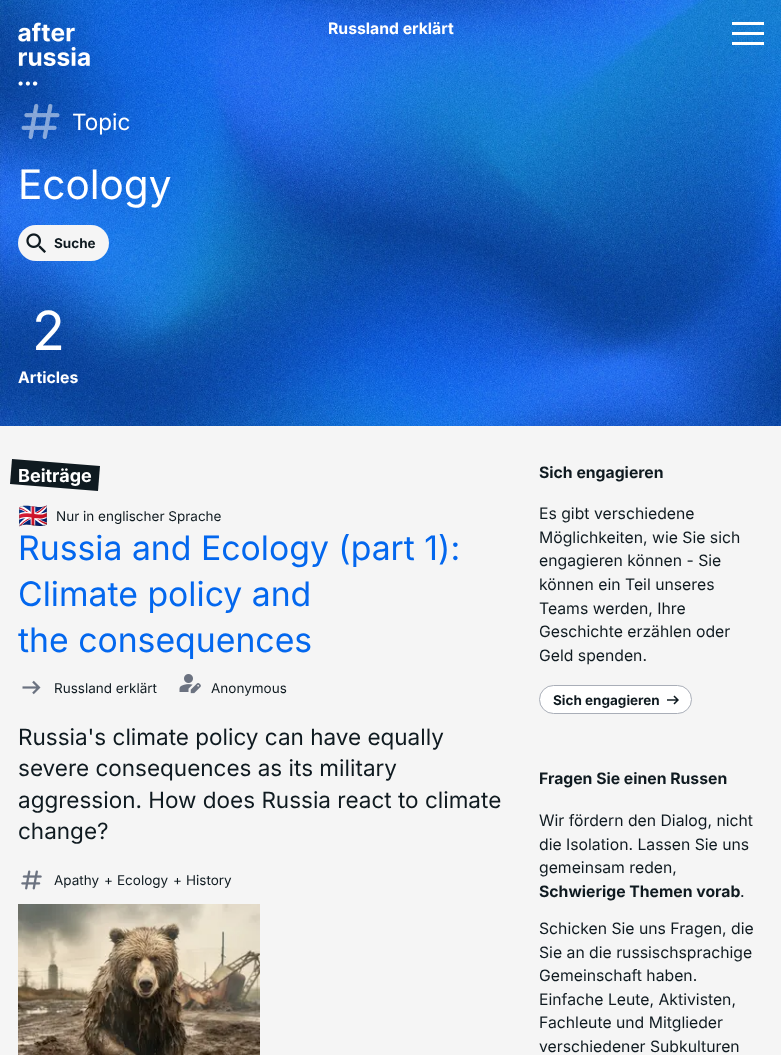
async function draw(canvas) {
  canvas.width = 781
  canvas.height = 1055
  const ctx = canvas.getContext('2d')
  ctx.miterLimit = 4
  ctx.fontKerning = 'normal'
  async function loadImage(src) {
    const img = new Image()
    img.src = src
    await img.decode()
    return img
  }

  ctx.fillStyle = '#f5f5f5'
  ctx.fillRect(0, 0, 781, 1055)
  ctx.fillStyle = '#0367ee'
  ctx.fillRect(0, 0, 781, 426)
  ctx.drawImage(await loadImage('image1.png'), 0, 0, 781, 426)
  ctx.drawImage(await loadImage('image0.png'), 18, 22, 72, 64)
  ctx.font = 'bold 15.75px Inter'
  ctx.fillStyle = '#fff'
  ctx.fillText('Russland erklärt', 328, 34)
  ctx.fillRect(732, 22, 32, 3)
  ctx.fillRect(732, 32, 32, 3)
  ctx.fillRect(732, 42, 32, 3)
  ctx.drawImage(await loadImage('image2.png'), 21, 103, 39, 36)
  ctx.font = '22.5px Inter'
  ctx.fillText('Topic', 72, 130)
  ctx.font = '40.5px Inter'
  ctx.fillText('Ecology', 18, 199)
  ctx.fillStyle = '#f5f5f5'
  ctx.beginPath()
  ctx.roundRect(18, 225, 91, 36, 18)
  ctx.fill()
  ctx.drawImage(await loadImage('image3.png'), 26, 233, 20, 20)
  ctx.font = 'bold 13.5px Inter'
  ctx.fillStyle = '#0f1a20'
  ctx.fillText('Suche', 54, 248)
  ctx.font = '54px Inter'
  ctx.fillStyle = '#fff'
  ctx.fillText('2', 32, 350)
  ctx.font = 'bold 15.75px Inter'
  ctx.fillText('Articles', 18, 383)
  ctx.fillStyle = '#0f1a20'
  ctx.beginPath()
  ctx.moveTo(12, 459)
  ctx.lineTo(100, 466)
  ctx.lineTo(98, 491)
  ctx.lineTo(10, 484)
  ctx.closePath()
  ctx.fill()
  ctx.font = 'bold 18px Inter'
  ctx.fillStyle = '#fff'
  ctx.fillText('Beiträge', 18, 482)
  ctx.font = '24px Noto Color Emoji'
  ctx.fillStyle = '#0f1a20'
  ctx.fillText('🇬🇧', 18, 524)
  ctx.font = '13.5px Inter'
  ctx.fillText('Nur in englischer Sprache', 56, 521)
  ctx.font = '33.75px Inter'
  ctx.fillStyle = '#0367ee'
  ctx.fillText('Russia and Ecology (part 1):', 18, 560)
  ctx.fillText('Climate policy and', 18, 606)
  ctx.fillText('the consequences', 18, 652)
  ctx.drawImage(await loadImage('image4.png'), 22, 680, 19, 15)
  ctx.font = '13.5px Inter'
  ctx.fillStyle = '#0f1a20'
  ctx.fillText('Russland erklärt', 54, 693)
  ctx.drawImage(await loadImage('image5.png'), 179, 674, 22, 20)
  ctx.fillText('Anonymous', 211, 693)
  ctx.font = '22.5px Inter'
  ctx.fillText('Russia\'s climate policy can have equally', 18, 745)
  ctx.fillText('severe consequences as its military', 18, 776)
  ctx.fillText('aggression. How does Russia react to climate', 18, 808)
  ctx.fillText('change?', 18, 839)
  ctx.drawImage(await loadImage('image6.png'), 21, 870, 21, 20)
  ctx.font = '13.5px Inter'
  ctx.fillText('Apathy', 54, 885)
  ctx.fillText('+', 104, 885)
  ctx.fillText('Ecology', 117, 885)
  ctx.fillText('+', 173, 885)
  ctx.fillText('History', 186, 885)
  ctx.drawImage(await loadImage('image7.png'), 18, 904, 242, 151)
  ctx.font = 'bold 15.75px Inter'
  ctx.fillText('Sich engagieren', 539, 478)
  ctx.font = '15.75px Inter'
  ctx.fillText('Es gibt verschiedene', 539, 519)
  ctx.fillText('Möglichkeiten, wie Sie sich', 539, 543)
  ctx.fillText('engagieren können - Sie', 539, 566)
  ctx.fillText('können ein Teil unseres', 539, 590)
  ctx.fillText('Teams werden, Ihre', 539, 614)
  ctx.fillText('Geschichte erzählen oder', 539, 637)
  ctx.fillText('Geld spenden.', 539, 661)
  ctx.fillStyle = '#fff'
  ctx.beginPath()
  ctx.roundRect(539.5, 685.5, 152, 28, 14)
  ctx.fill()
  ctx.strokeStyle = '#a9aeb8'
  ctx.stroke()
  ctx.font = 'bold 13.5px Inter'
  ctx.fillStyle = '#0f1a20'
  ctx.fillText('Sich engagieren', 553, 705)
  ctx.drawImage(await loadImage('image8.png'), 667, 695, 12, 10)
  ctx.font = 'bold 15.75px Inter'
  ctx.fillText('Fragen Sie einen Russen', 539, 784)
  ctx.font = '15.75px Inter'
  ctx.fillText('Wir fördern den Dialog, nicht', 539, 826)
  ctx.fillText('die Isolation. Lassen Sie uns', 539, 850)
  ctx.fillText('gemeinsam reden,', 539, 873)
  ctx.font = 'bold 15.75px Inter'
  ctx.fillText('Schwierige Themen vorab', 539, 897)
  ctx.font = '15.75px Inter'
  ctx.fillText('.', 740, 897)
  ctx.fillText('Schicken Sie uns Fragen, die', 539, 934)
  ctx.fillText('Sie an die russischsprachige', 539, 958)
  ctx.fillText('Gemeinschaft haben.', 539, 981)
  ctx.fillText('Einfache Leute, Aktivisten,', 539, 1005)
  ctx.fillText('Fachleute und Mitglieder', 539, 1028)
  ctx.fillText('verschiedener Subkulturen', 539, 1052)
}

draw(document.querySelector('canvas'))
